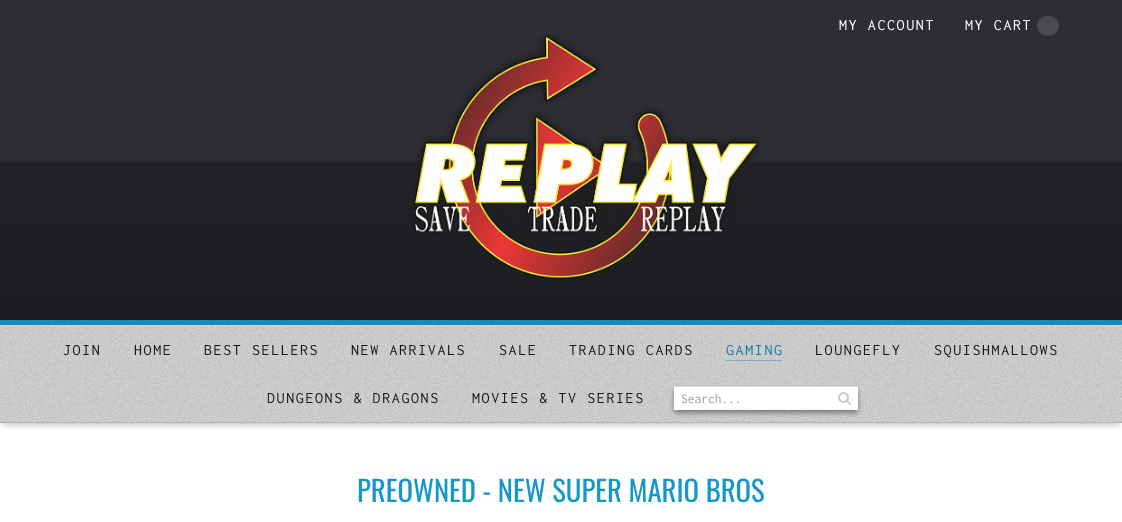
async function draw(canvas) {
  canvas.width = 1122
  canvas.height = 522
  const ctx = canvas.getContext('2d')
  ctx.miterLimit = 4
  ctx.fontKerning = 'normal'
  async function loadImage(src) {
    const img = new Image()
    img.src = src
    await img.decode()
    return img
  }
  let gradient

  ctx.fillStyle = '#fff'
  ctx.fillRect(0, 0, 1122, 522)
  gradient = ctx.createLinearGradient(561, 0, 561, 423)
  gradient.addColorStop(0, '#2d2e32')
  gradient.addColorStop(0.5, '#2d2e33')
  gradient.addColorStop(0.51, '#212225')
  gradient.addColorStop(1, '#1c1d20')
  ctx.fillStyle = gradient
  ctx.fillRect(0, 319, 1122, 1)
  gradient = ctx.createLinearGradient(561, 0, 561, 319)
  gradient.addColorStop(0, '#2d2e32')
  gradient.addColorStop(0.5, '#2d2e33')
  gradient.addColorStop(0.51, '#212225')
  gradient.addColorStop(1, '#1c1d20')
  ctx.fillStyle = gradient
  ctx.fillRect(0, 0, 1122, 319)
  ctx.letterSpacing = '1.6px'
  ctx.font = '16px Inconsolata'
  ctx.fillStyle = '#fff'
  ctx.fillText('MY ACCOUNT', 839, 30)
  ctx.fillText('MY CART', 965, 30)
  ctx.fillStyle = '#4a4b4f'
  ctx.beginPath()
  ctx.roundRect(1037, 16, 22, 20, 10)
  ctx.fill()
  ctx.drawImage(await loadImage('image0.png'), 413, 34, 347, 245)
  ctx.fillStyle = '#0000004d'
  ctx.filter = 'blur(3.5px)'
  ctx.beginPath()
  ctx.rect(2, 330, 1118, 94)
  ctx.fill()
  ctx.filter = 'none'
  ctx.drawImage(await loadImage('image1.png'), 0, 325, 1122, 98)
  ctx.fillStyle = '#ffffff33'
  ctx.fillRect(0, 325, 1122, 1)
  ctx.fillStyle = '#0000001a'
  ctx.fillRect(0, 422, 1122, 1)
  ctx.fillStyle = '#1597c9'
  ctx.fillRect(0, 320, 1122, 5)
  ctx.drawImage(await loadImage('image2.png'), 0, 320, 1122, 5)
  ctx.fillStyle = '#151516'
  ctx.fillText('JOIN', 63, 355)
  ctx.fillText('HOME', 134, 355)
  ctx.fillText('BEST SELLERS', 204, 355)
  ctx.fillText('NEW ARRIVALS', 351, 355)
  ctx.fillText('SALE', 499, 355)
  ctx.fillText('TRADING CARDS', 569, 355)
  ctx.fillStyle = '#177da5'
  ctx.fillText('GAMING', 726, 355)
  ctx.fillStyle = '#177da566'
  ctx.fillRect(726, 360, 56, 1)
  ctx.fillStyle = '#151516'
  ctx.fillText('LOUNGEFLY', 815, 355)
  ctx.fillText('SQUISHMALLOWS', 934, 355)
  ctx.fillText('DUNGEONS & DRAGONS', 267, 403)
  ctx.fillText('MOVIES & TV SERIES', 472, 403)
  ctx.drawImage(await loadImage('image3.png'), 674, 386, 184, 1)
  ctx.fillStyle = '#ffffff80'
  ctx.fillRect(674, 386, 184, 1)
  ctx.fillStyle = '#00000066'
  ctx.filter = 'blur(2.5px)'
  ctx.beginPath()
  ctx.rect(674, 390, 184, 23)
  ctx.fill()
  ctx.filter = 'none'
  ctx.fillStyle = '#fff'
  ctx.fillRect(674, 387, 184, 23)
  ctx.letterSpacing = '0px'
  ctx.font = '13.5px Inconsolata'
  ctx.fillStyle = '#9e9e9e'
  ctx.fillText('Search...', 681, 403)
  ctx.drawImage(await loadImage('image4.png'), 838, 392, 13, 13)
  ctx.font = '28.75px Oswald'
  ctx.fillStyle = '#1597c9'
  ctx.fillText('PREOWNED - NEW SUPER MARIO BROS', 357, 502)
}

draw(document.querySelector('canvas'))
